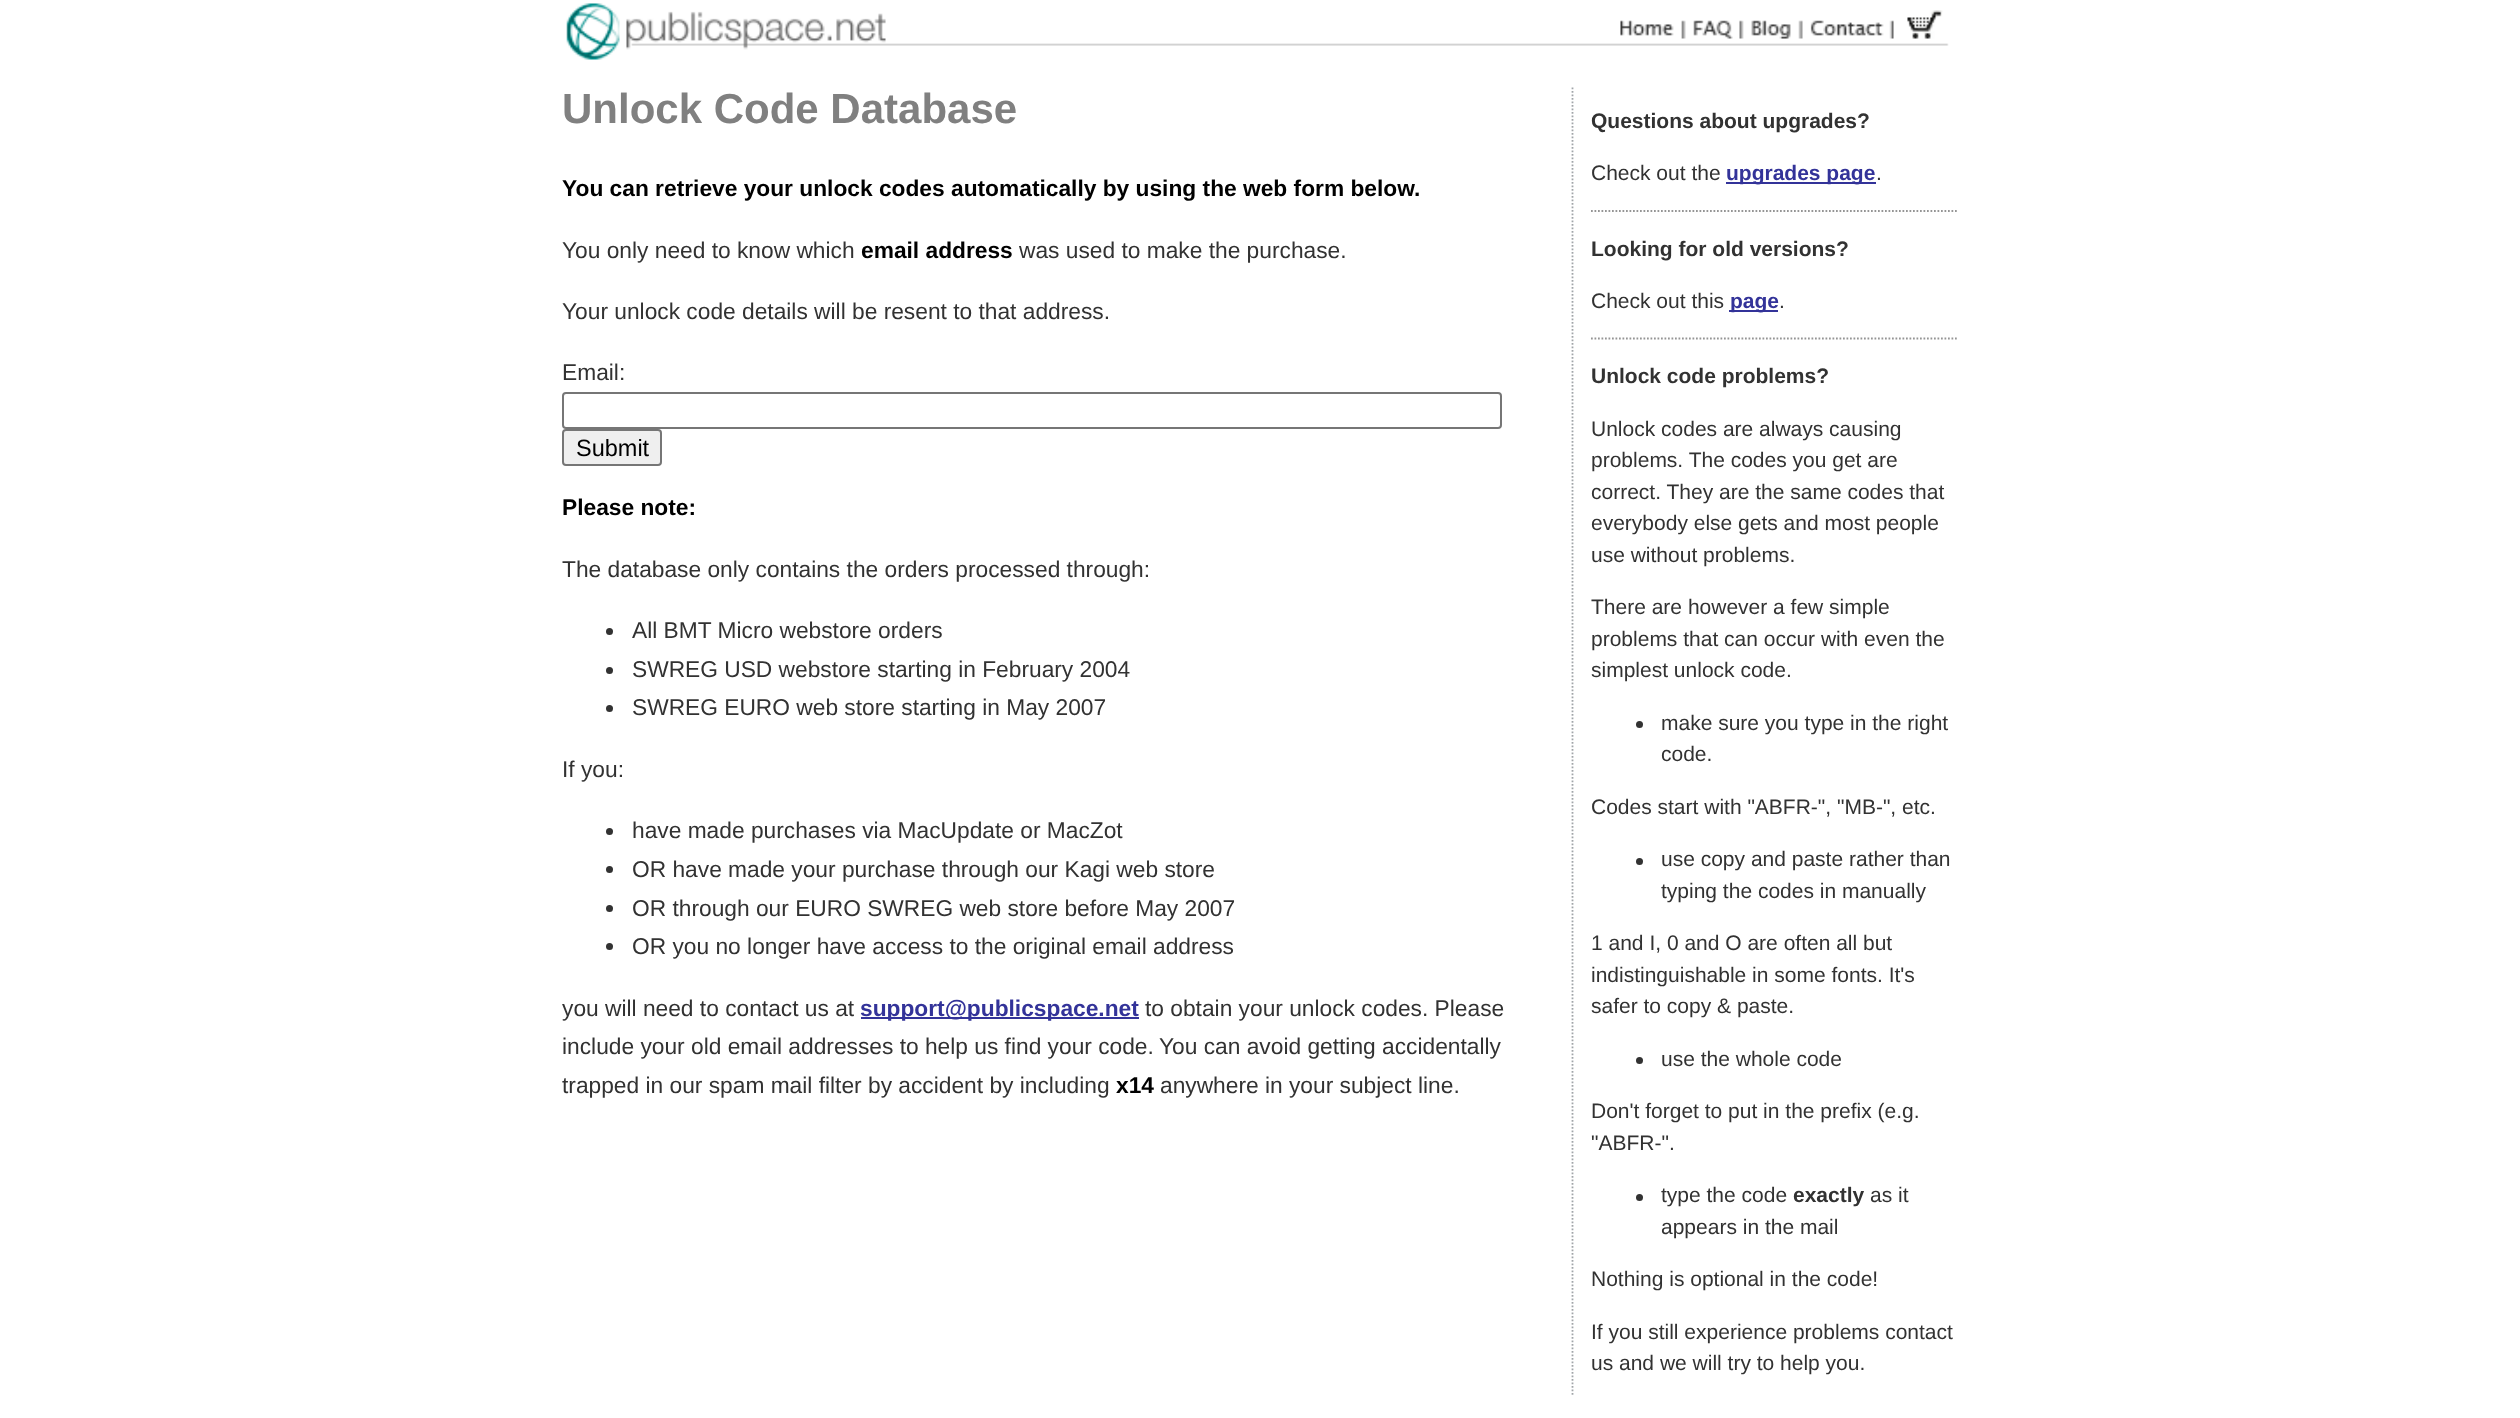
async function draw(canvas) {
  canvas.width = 2520
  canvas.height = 1418
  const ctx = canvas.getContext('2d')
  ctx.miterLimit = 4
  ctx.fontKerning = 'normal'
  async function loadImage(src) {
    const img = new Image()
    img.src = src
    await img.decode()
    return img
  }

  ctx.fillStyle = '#fff'
  ctx.fillRect(0, 0, 2520, 1418)
  ctx.drawImage(await loadImage('image0.png'), 566, 3, 1383, 57)
  ctx.font = 'bold 42px Liberation Sans'
  ctx.fillStyle = '#808080'
  ctx.fillText('Unlock Code Database', 562, 123)
  ctx.font = 'bold 22.75px Liberation Sans'
  ctx.fillStyle = '#000'
  ctx.fillText('You can retrieve your unlock codes automatically by using the web form below.', 562, 196)
  ctx.font = '22.75px Liberation Sans'
  ctx.fillStyle = '#323232'
  ctx.fillText('You only need to know which', 562, 258)
  ctx.font = 'bold 22.75px Liberation Sans'
  ctx.fillStyle = '#000'
  ctx.fillText('email address', 861, 258)
  ctx.font = '22.75px Liberation Sans'
  ctx.fillStyle = '#323232'
  ctx.fillText('was used to make the purchase.', 1019, 258)
  ctx.fillText('Your unlock code details will be resent to that address.', 562, 319)
  ctx.fillText('Email:', 562, 380)
  ctx.beginPath()
  ctx.roundRect(563, 393, 938, 35, 3)
  ctx.strokeStyle = '#767676'
  ctx.lineWidth = 2
  ctx.stroke()
  ctx.fillStyle = '#efefef'
  ctx.beginPath()
  ctx.roundRect(563, 430, 98, 35, 3)
  ctx.fill()
  ctx.stroke()
  ctx.font = '23.5px Liberation Sans'
  ctx.fillStyle = '#000'
  ctx.fillText('Submit', 576, 456)
  ctx.font = 'bold 22.75px Liberation Sans'
  ctx.fillText('Please note:', 562, 515)
  ctx.font = '22.75px Liberation Sans'
  ctx.fillStyle = '#323232'
  ctx.fillText('The database only contains the orders processed through:', 562, 577)
  ctx.beginPath()
  ctx.arc(609.5, 631.5, 3.5, 0, 2 * Math.PI)
  ctx.fill()
  ctx.fillText('All BMT Micro webstore orders', 632, 638)
  ctx.beginPath()
  ctx.arc(609.5, 670.5, 3.5, 0, 2 * Math.PI)
  ctx.fill()
  ctx.fillText('SWREG USD webstore starting in February 2004', 632, 677)
  ctx.beginPath()
  ctx.arc(609.5, 708.5, 3.5, 0, 2 * Math.PI)
  ctx.fill()
  ctx.fillText('SWREG EURO web store starting in May 2007', 632, 715)
  ctx.fillText('If you:', 562, 777)
  ctx.beginPath()
  ctx.arc(609.5, 831.5, 3.5, 0, 2 * Math.PI)
  ctx.fill()
  ctx.fillText('have made purchases via MacUpdate or MacZot', 632, 838)
  ctx.beginPath()
  ctx.arc(609.5, 869.5, 3.5, 0, 2 * Math.PI)
  ctx.fill()
  ctx.fillText('OR have made your purchase through our Kagi web store', 632, 877)
  ctx.beginPath()
  ctx.arc(609.5, 908.5, 3.5, 0, 2 * Math.PI)
  ctx.fill()
  ctx.fillText('OR through our EURO SWREG web store before May 2007', 632, 916)
  ctx.beginPath()
  ctx.arc(609.5, 946.5, 3.5, 0, 2 * Math.PI)
  ctx.fill()
  ctx.fillText('OR you no longer have access to the original email address', 632, 954)
  ctx.fillText('you will need to contact us at', 562, 1016)
  ctx.fillStyle = '#339'
  ctx.fillRect(861, 1017, 278, 2)
  ctx.font = 'bold 22.75px Liberation Sans'
  ctx.fillText('support@publicspace.net', 860, 1016)
  ctx.font = '22.75px Liberation Sans'
  ctx.fillStyle = '#323232'
  ctx.fillText('to obtain your unlock codes. Please', 1145, 1016)
  ctx.fillText('include your old email addresses to help us find your code.', 562, 1054)
  ctx.fillText('You can avoid getting accidentally', 1159, 1054)
  ctx.fillText('trapped in our spam mail filter by accident by including', 562, 1093)
  ctx.font = 'bold 22.75px Liberation Sans'
  ctx.fillStyle = '#000'
  ctx.fillText('x14', 1116, 1093)
  ctx.font = '22.75px Liberation Sans'
  ctx.fillStyle = '#323232'
  ctx.fillText('anywhere in your subject line.', 1160, 1093)
  ctx.beginPath()
  ctx.moveTo(1572.5, 87.5)
  ctx.lineTo(1572.5, 1396.5)
  ctx.strokeStyle = '#a1a5a9'
  ctx.lineWidth = 1.8
  ctx.setLineDash([1.75, 1.75])
  ctx.stroke()
  ctx.font = 'bold 21px Liberation Sans'
  ctx.fillText('Questions about upgrades?', 1591, 128)
  ctx.font = '21px Liberation Sans'
  ctx.fillText('Check out the', 1591, 180)
  ctx.fillStyle = '#339'
  ctx.fillRect(1726, 182, 150, 2)
  ctx.font = 'bold 21px Liberation Sans'
  ctx.fillText('upgrades page', 1726, 180)
  ctx.font = '21px Liberation Sans'
  ctx.fillStyle = '#323232'
  ctx.fillText('.', 1876, 180)
  ctx.beginPath()
  ctx.moveTo(1591, 211)
  ctx.lineTo(1958, 211)
  ctx.strokeStyle = '#959595'
  ctx.stroke()
  ctx.font = 'bold 21px Liberation Sans'
  ctx.fillText('Looking for old versions?', 1591, 256)
  ctx.font = '21px Liberation Sans'
  ctx.fillText('Check out this', 1591, 308)
  ctx.fillStyle = '#339'
  ctx.fillRect(1729, 310, 49, 2)
  ctx.font = 'bold 21px Liberation Sans'
  ctx.fillText('page', 1730, 308)
  ctx.font = '21px Liberation Sans'
  ctx.fillStyle = '#323232'
  ctx.fillText('.', 1779, 308)
  ctx.beginPath()
  ctx.moveTo(1591, 338.5)
  ctx.lineTo(1958, 338.5)
  ctx.stroke()
  ctx.font = 'bold 21px Liberation Sans'
  ctx.fillText('Unlock code problems?', 1591, 383)
  ctx.font = '21px Liberation Sans'
  ctx.fillText('Unlock codes are always causing', 1591, 436)
  ctx.fillText('problems. The codes you get are', 1591, 467)
  ctx.fillText('correct. They are the same codes that', 1591, 499)
  ctx.fillText('everybody else gets and most people', 1591, 530)
  ctx.fillText('use without problems.', 1591, 562)
  ctx.fillText('There are however a few simple', 1591, 614)
  ctx.fillText('problems that can occur with even the', 1591, 646)
  ctx.fillText('simplest unlock code.', 1591, 677)
  ctx.beginPath()
  ctx.arc(1639.5, 724.5, 3.5, 0, 2 * Math.PI)
  ctx.fill()
  ctx.fillText('make sure you type in the right', 1661, 730)
  ctx.fillText('code.', 1661, 761)
  ctx.fillText('Codes start with "ABFR-", "MB-", etc.', 1591, 814)
  ctx.beginPath()
  ctx.arc(1639.5, 861.5, 3.5, 0, 2 * Math.PI)
  ctx.fill()
  ctx.fillText('use copy and paste rather than', 1661, 866)
  ctx.fillText('typing the codes in manually', 1661, 898)
  ctx.fillText('1 and I, 0 and O are often all but', 1591, 950)
  ctx.fillText('indistinguishable in some fonts. It\'s', 1591, 982)
  ctx.fillText('safer to copy & paste.', 1591, 1013)
  ctx.beginPath()
  ctx.arc(1639.5, 1060.5, 3.5, 0, 2 * Math.PI)
  ctx.fill()
  ctx.fillText('use the whole code', 1661, 1066)
  ctx.fillText('Don\'t forget to put in the prefix (e.g.', 1591, 1118)
  ctx.fillText('"ABFR-".', 1591, 1150)
  ctx.beginPath()
  ctx.arc(1639.5, 1197.5, 3.5, 0, 2 * Math.PI)
  ctx.fill()
  ctx.fillText('type the code', 1661, 1202)
  ctx.font = 'bold 21px Liberation Sans'
  ctx.fillText('exactly', 1793, 1202)
  ctx.font = '21px Liberation Sans'
  ctx.fillText('as it', 1870, 1202)
  ctx.fillText('appears in the mail', 1661, 1234)
  ctx.fillText('Nothing is optional in the code!', 1591, 1286)
  ctx.fillText('If you still experience problems contact', 1591, 1339)
  ctx.fillText('us and we will try to help you.', 1591, 1370)
}

draw(document.querySelector('canvas'))
